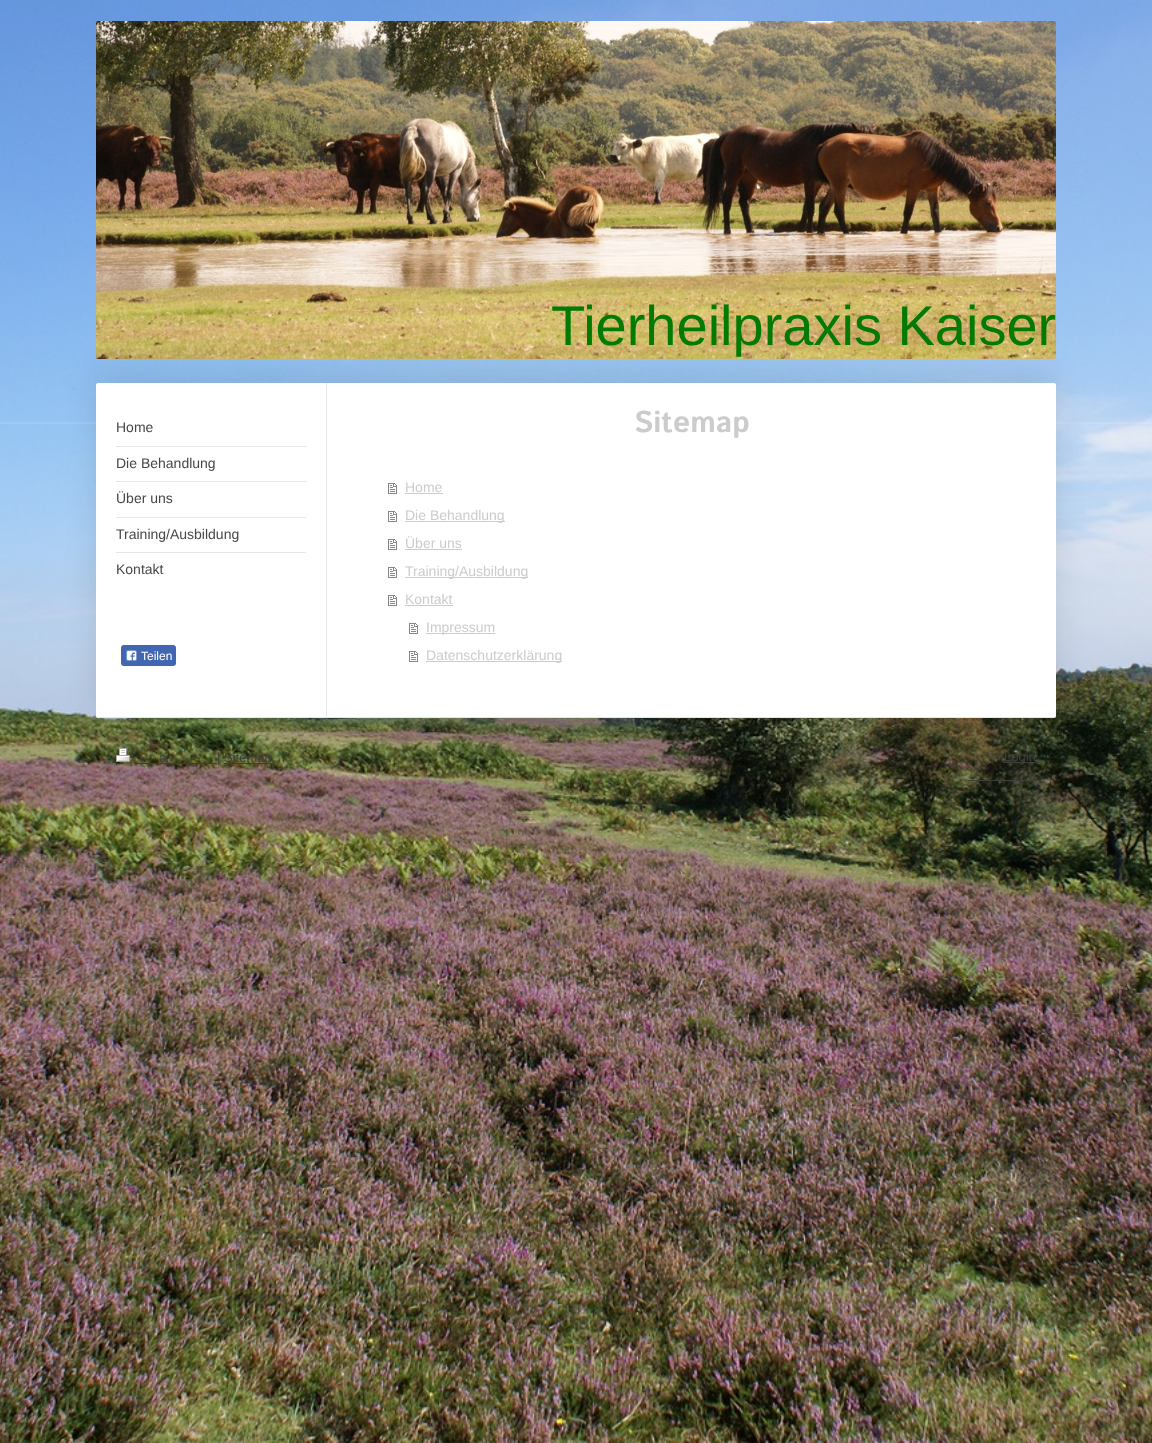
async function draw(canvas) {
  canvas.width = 1152
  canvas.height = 1443
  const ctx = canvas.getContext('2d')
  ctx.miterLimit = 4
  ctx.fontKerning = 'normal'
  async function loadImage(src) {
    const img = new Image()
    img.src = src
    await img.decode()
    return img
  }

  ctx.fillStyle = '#fff'
  ctx.fillRect(0, 0, 1152, 1443)
  ctx.drawImage(await loadImage('image0.png'), 0, 0, 1152, 1443)
  ctx.save()
  ctx.beginPath()
  ctx.rect(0, 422, 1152, 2)
  ctx.clip()
  ctx.fillStyle = '#ffffff1a'
  ctx.filter = 'blur(0.5px)'
  ctx.beginPath()
  ctx.rect(0, 2, 1152, 422)
  ctx.fill()
  ctx.filter = 'none'
  ctx.restore()
  ctx.drawImage(await loadImage('image1.png'), 96, 21, 960, 338)
  ctx.fillStyle = '#0000001a'
  ctx.filter = 'blur(15px)'
  ctx.beginPath()
  ctx.roundRect(96, 373, 960, 335, 2)
  ctx.fill()
  ctx.filter = 'none'
  ctx.font = '56px Liberation Sans'
  ctx.fillStyle = '#037a04'
  ctx.fillText('Tierheilpraxis Kaiser', 551, 345)
  ctx.fillStyle = '#fff'
  ctx.beginPath()
  ctx.roundRect(96, 383, 960, 335, 2)
  ctx.fill()
  ctx.fillStyle = '#e6e6e6'
  ctx.fillRect(97, 717, 958, 1)
  ctx.fillRect(116, 446, 190, 1)
  ctx.font = '14px Liberation Sans'
  ctx.fillStyle = '#474747'
  ctx.fillText('Home', 116, 432)
  ctx.fillStyle = '#e6e6e6'
  ctx.fillRect(116, 481, 190, 1)
  ctx.fillStyle = '#474747'
  ctx.fillText('Die Behandlung', 116, 468)
  ctx.fillStyle = '#e6e6e6'
  ctx.fillRect(116, 517, 190, 1)
  ctx.fillStyle = '#474747'
  ctx.fillText('Über uns', 116, 503)
  ctx.fillStyle = '#e6e6e6'
  ctx.fillRect(116, 552, 190, 1)
  ctx.fillStyle = '#474747'
  ctx.fillText('Training/Ausbildung', 116, 539)
  ctx.fillText('Kontakt', 116, 574)
  ctx.fillStyle = '#e6e6e6'
  ctx.fillRect(326, 383, 1, 334)
  ctx.font = 'bold 30px Istok Web'
  ctx.fillStyle = '#ccc'
  ctx.fillText('Sitemap', 634, 432)
  ctx.drawImage(await loadImage('image2.png'), 388, 483, 9, 11)
  ctx.font = '14px Liberation Sans'
  ctx.fillText('Home', 405, 492)
  ctx.fillRect(405, 493, 38, 1)
  ctx.drawImage(await loadImage('image2.png'), 388, 511, 9, 11)
  ctx.fillRect(405, 521, 100, 1)
  ctx.fillText('Die Behandlung', 405, 520)
  ctx.drawImage(await loadImage('image2.png'), 388, 539, 9, 11)
  ctx.fillText('Über uns', 405, 548)
  ctx.fillRect(405, 549, 57, 1)
  ctx.drawImage(await loadImage('image2.png'), 388, 567, 9, 11)
  ctx.fillRect(405, 577, 123, 1)
  ctx.fillText('Training/Ausbildung', 405, 576)
  ctx.drawImage(await loadImage('image2.png'), 388, 595, 9, 11)
  ctx.fillText('Kontakt', 405, 604)
  ctx.fillRect(405, 605, 48, 1)
  ctx.drawImage(await loadImage('image2.png'), 409, 623, 9, 11)
  ctx.fillRect(426, 633, 69, 1)
  ctx.fillText('Impressum', 426, 632)
  ctx.drawImage(await loadImage('image2.png'), 409, 651, 9, 11)
  ctx.fillRect(426, 661, 136, 1)
  ctx.fillText('Datenschutzerklärung', 426, 660)
  ctx.fillStyle = '#4267b2'
  ctx.beginPath()
  ctx.roundRect(121, 645, 55, 21, 3)
  ctx.fill()
  ctx.drawImage(await loadImage('image3.png'), 126, 650, 11, 11)
  ctx.font = '12px Liberation Sans'
  ctx.fillStyle = '#fff'
  ctx.fillText('Teilen', 141, 660)
  ctx.drawImage(await loadImage('image4.png'), 116, 748, 14, 14)
  ctx.font = '13px Liberation Sans'
  ctx.fillStyle = '#3d3d3d'
  ctx.fillText('c', 159, 762)
  ctx.fillRect(134, 763, 83, 1)
  ctx.fillText('|', 217, 762)
  ctx.fillRect(224, 763, 48, 1)
  ctx.fillText('Sitemap', 224, 762)
  ctx.fillRect(1004, 762, 32, 1)
  ctx.fillText('Login', 1004, 761)
  ctx.fillRect(968, 780, 68, 1)
}

draw(document.querySelector('canvas'))
